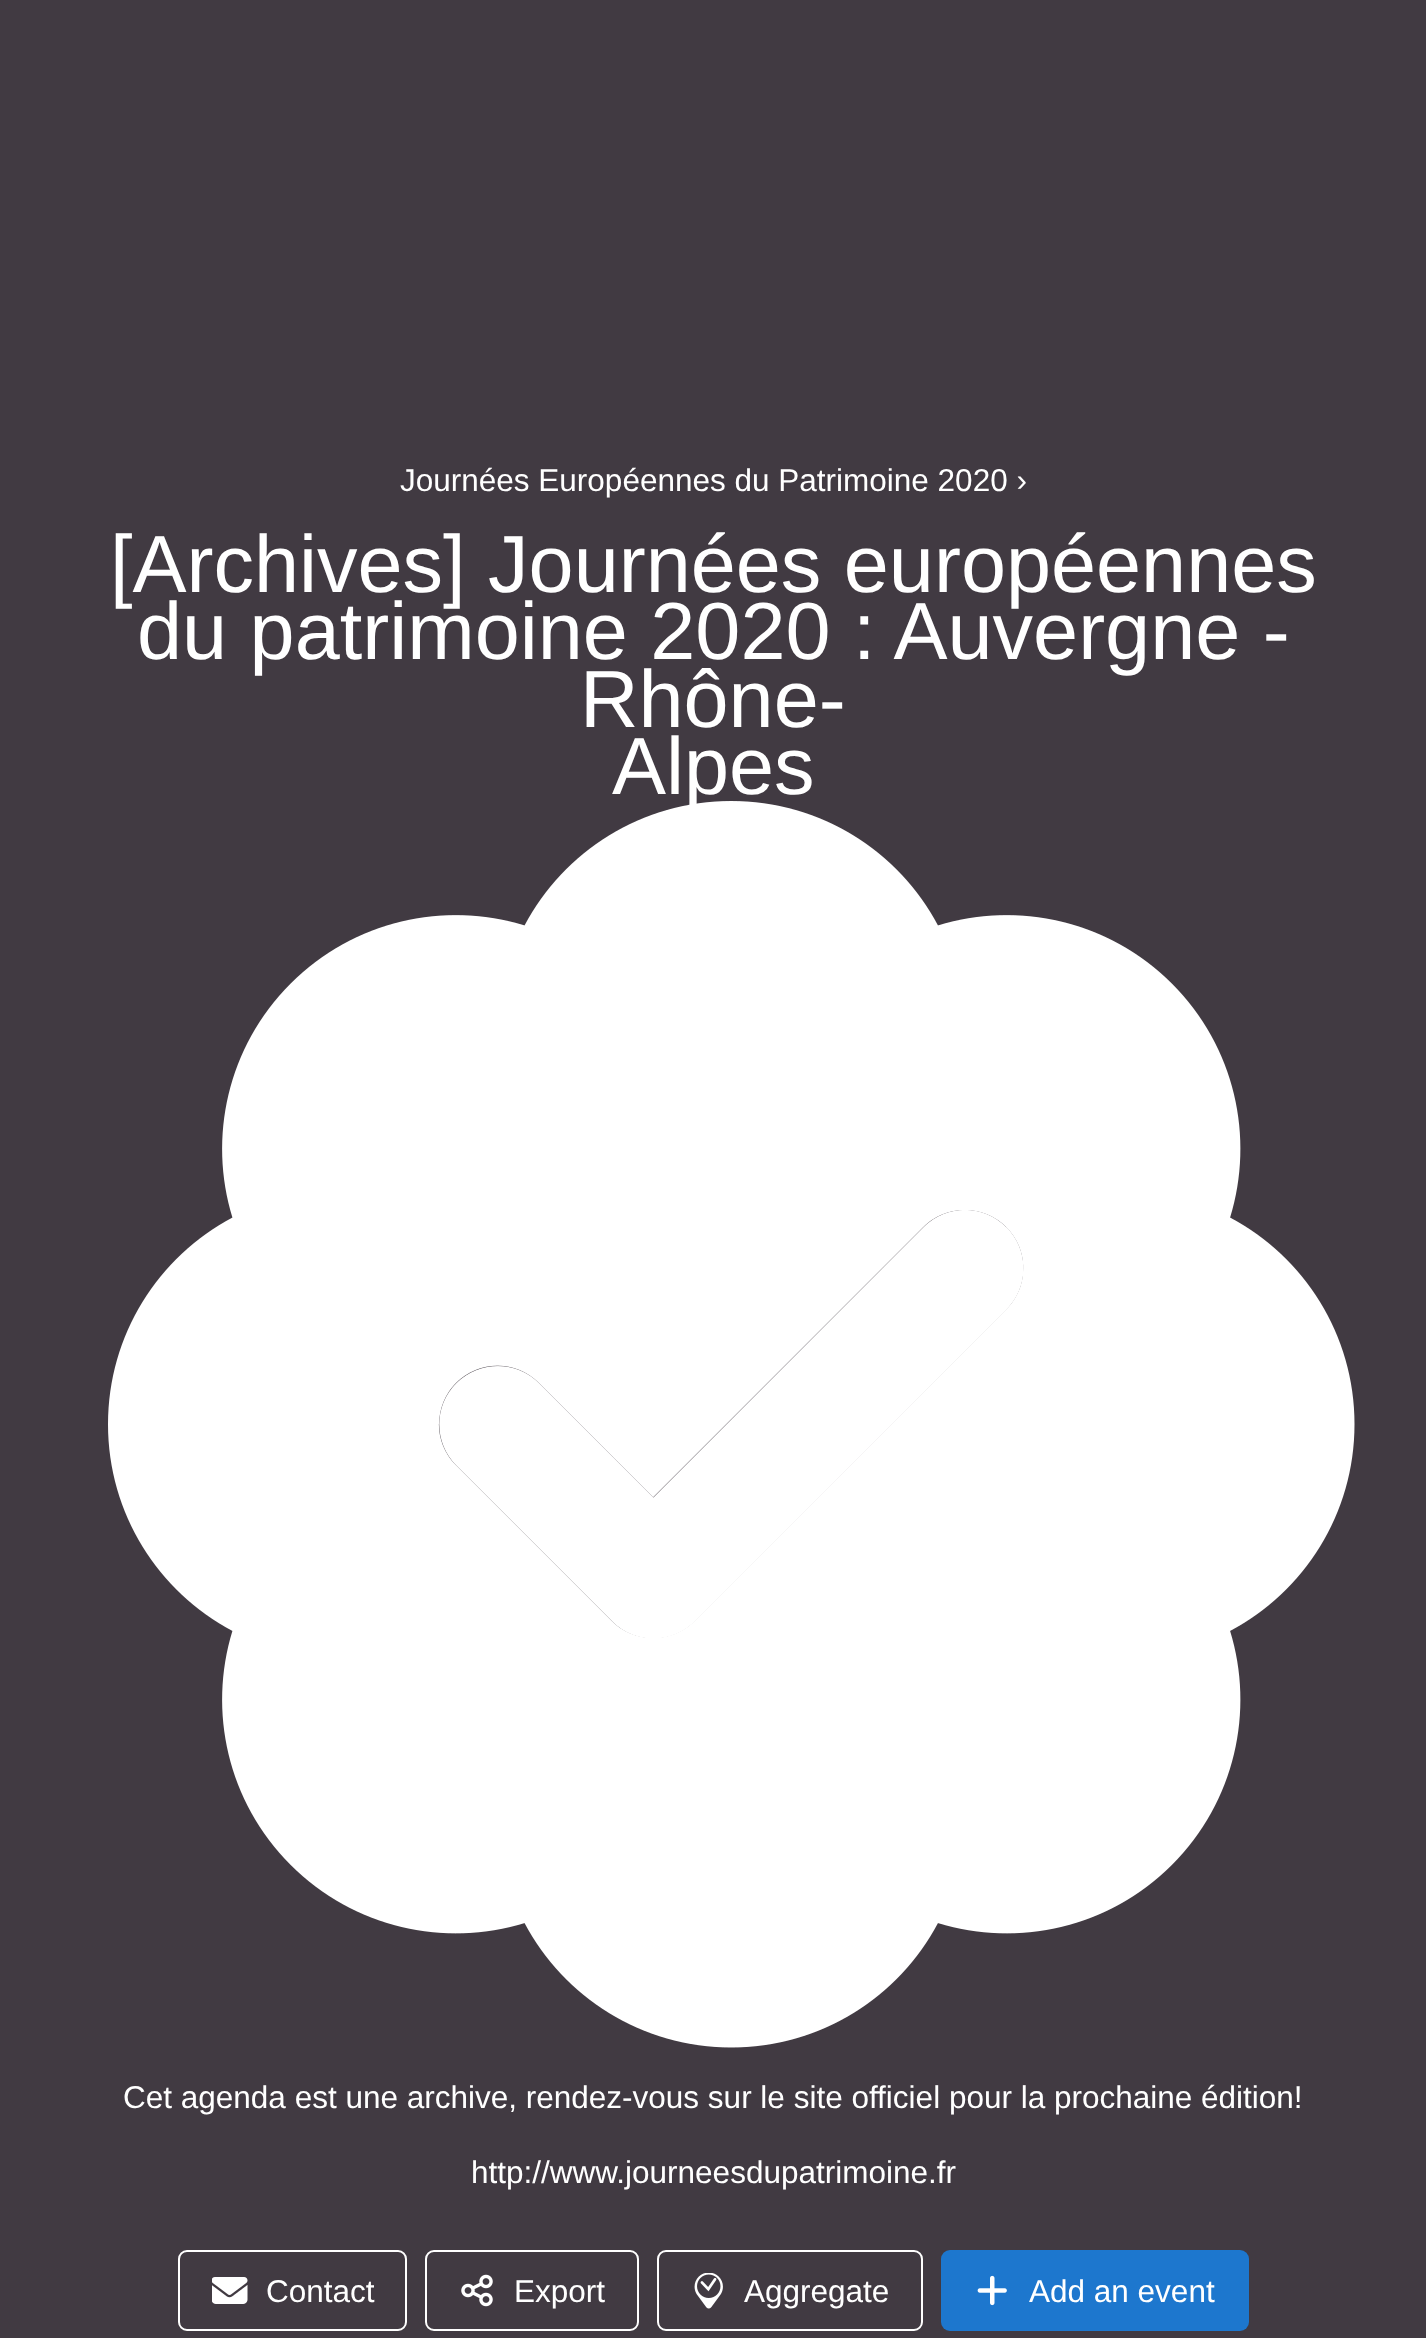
async function draw(canvas) {
  canvas.width = 1426
  canvas.height = 2338
  const ctx = canvas.getContext('2d')
  ctx.miterLimit = 4
  ctx.fontKerning = 'normal'
  async function loadImage(src) {
    const img = new Image()
    img.src = src
    await img.decode()
    return img
  }

  ctx.fillStyle = '#413a42'
  ctx.fillRect(0, 0, 1426, 2338)
  ctx.font = '31.5px Liberation Sans'
  ctx.fillStyle = '#fff'
  ctx.fillText('Journées Européennes du Patrimoine 2020 ›', 400, 491)
  ctx.font = '81px Liberation Sans'
  ctx.fillText('[Archives] Journées européennes', 110, 592)
  ctx.fillText('du patrimoine 2020 : Auvergne -', 137, 659)
  ctx.fillText('Rhône-', 580, 727)
  ctx.fillText('Alpes', 612, 794)
  ctx.drawImage(await loadImage('image0.png'), 108, 801, 1247, 1247)
  ctx.font = '31.5px Liberation Sans'
  ctx.fillText('Cet agenda est une archive, rendez-vous sur le site officiel pour la prochaine édition!', 123, 2108)
  ctx.fillText('http://www.journeesdupatrimoine.fr', 471, 2183)
  ctx.beginPath()
  ctx.roundRect(179, 2251, 227, 79, 8)
  ctx.strokeStyle = '#fff'
  ctx.lineWidth = 2
  ctx.stroke()
  ctx.drawImage(await loadImage('image1.png'), 212, 2277, 36, 27)
  ctx.fillText('Contact', 266, 2302)
  ctx.beginPath()
  ctx.roundRect(426, 2251, 212, 79, 8)
  ctx.stroke()
  ctx.drawImage(await loadImage('image2.png'), 461, 2274, 32, 33)
  ctx.fillText('Export', 514, 2302)
  ctx.beginPath()
  ctx.roundRect(658, 2251, 264, 79, 8)
  ctx.stroke()
  ctx.drawImage(await loadImage('image3.png'), 694, 2273, 29, 36)
  ctx.fillText('Aggregate', 744, 2302)
  ctx.fillStyle = '#1d77ce'
  ctx.beginPath()
  ctx.roundRect(941, 2250, 308, 81, 9)
  ctx.fill()
  ctx.drawImage(await loadImage('image4.png'), 977, 2275, 30, 31)
  ctx.fillStyle = '#fff'
  ctx.fillText('Add an event', 1029, 2302)
}

draw(document.querySelector('canvas'))
